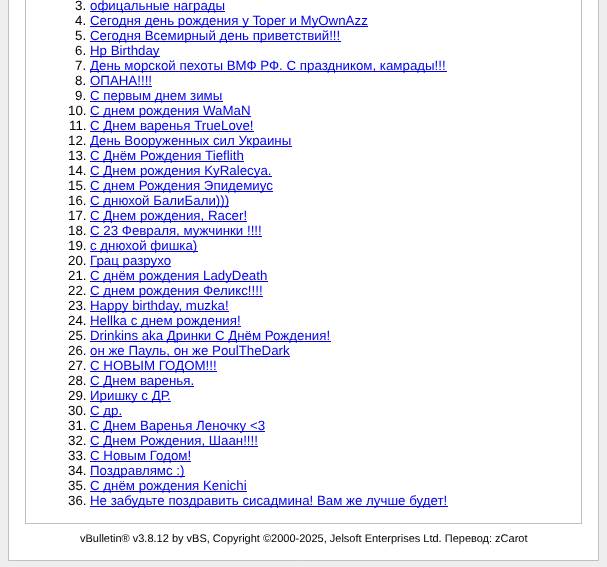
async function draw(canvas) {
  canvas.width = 607
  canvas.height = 567
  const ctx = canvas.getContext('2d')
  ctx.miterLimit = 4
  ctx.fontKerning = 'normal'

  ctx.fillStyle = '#eee'
  ctx.fillRect(0, 0, 607, 567)
  ctx.fillStyle = '#fff'
  ctx.beginPath()
  ctx.rect(8.5, -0.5, 590, 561)
  ctx.fill()
  ctx.strokeStyle = '#c0c0c0'
  ctx.stroke()
  ctx.strokeRect(25.5, -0.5, 556, 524)
  ctx.font = '13.3px Liberation Sans'
  ctx.fillStyle = '#000'
  ctx.fillText('3.', 75, 10)
  ctx.fillStyle = '#00e'
  ctx.fillRect(90, 11, 135, 1)
  ctx.fillText('офицальные награды', 90, 10)
  ctx.fillStyle = '#000'
  ctx.fillText('4.', 75, 25)
  ctx.fillStyle = '#00e'
  ctx.fillRect(90, 26, 278, 1)
  ctx.fillText('Сегодня день рождения у Toper и MyOwnAzz', 90, 25)
  ctx.fillStyle = '#000'
  ctx.fillText('5.', 75, 40)
  ctx.fillStyle = '#00e'
  ctx.fillRect(90, 41, 251, 1)
  ctx.fillText('Сегодня Всемирный день приветствий!!!', 90, 40)
  ctx.fillStyle = '#000'
  ctx.fillText('6.', 75, 55)
  ctx.fillStyle = '#00e'
  ctx.fillRect(90, 56, 70, 1)
  ctx.fillText('Hp Birthday', 90, 55)
  ctx.fillStyle = '#000'
  ctx.fillText('7.', 75, 70)
  ctx.fillStyle = '#00e'
  ctx.fillRect(90, 71, 357, 1)
  ctx.fillText('День морской пехоты ВМФ РФ. С праздником, камрады!!!', 90, 70)
  ctx.fillStyle = '#000'
  ctx.fillText('8.', 75, 85)
  ctx.fillStyle = '#00e'
  ctx.fillText('ОПАНА!!!!', 90, 85)
  ctx.fillRect(90, 86, 62, 1)
  ctx.fillStyle = '#000'
  ctx.fillText('9.', 75, 100)
  ctx.fillStyle = '#00e'
  ctx.fillRect(90, 101, 133, 1)
  ctx.fillText('С первым днем зимы', 90, 100)
  ctx.fillStyle = '#000'
  ctx.fillText('10.', 68, 115)
  ctx.fillStyle = '#00e'
  ctx.fillRect(90, 116, 161, 1)
  ctx.fillText('С днем рождения WaMaN', 90, 115)
  ctx.fillStyle = '#000'
  ctx.fillText('11.', 69, 130)
  ctx.fillStyle = '#00e'
  ctx.fillRect(90, 131, 164, 1)
  ctx.fillText('С Днем варенья TrueLove!', 90, 130)
  ctx.fillStyle = '#000'
  ctx.fillText('12.', 68, 145)
  ctx.fillStyle = '#00e'
  ctx.fillRect(90, 146, 202, 1)
  ctx.fillText('День Вооруженных сил Украины', 90, 145)
  ctx.fillStyle = '#000'
  ctx.fillText('13.', 68, 160)
  ctx.fillStyle = '#00e'
  ctx.fillRect(90, 161, 154, 1)
  ctx.fillText('С Днём Рождения Tieflith', 90, 160)
  ctx.fillStyle = '#000'
  ctx.fillText('14.', 68, 175)
  ctx.fillStyle = '#00e'
  ctx.fillRect(90, 176, 182, 1)
  ctx.fillText('С Днем рождения KyRalecya.', 90, 175)
  ctx.fillStyle = '#000'
  ctx.fillText('15.', 68, 190)
  ctx.fillStyle = '#00e'
  ctx.fillRect(90, 191, 183, 1)
  ctx.fillText('C днем Рождения Эпидемиус', 90, 190)
  ctx.fillStyle = '#000'
  ctx.fillText('16.', 68, 205)
  ctx.fillStyle = '#00e'
  ctx.fillRect(90, 206, 139, 1)
  ctx.fillText('С днюхой БалиБали)))', 90, 205)
  ctx.fillStyle = '#000'
  ctx.fillText('17.', 68, 220)
  ctx.fillStyle = '#00e'
  ctx.fillRect(90, 221, 157, 1)
  ctx.fillText('С Днем рождения, Racer!', 90, 220)
  ctx.fillStyle = '#000'
  ctx.fillText('18.', 68, 235)
  ctx.fillStyle = '#00e'
  ctx.fillRect(90, 236, 172, 1)
  ctx.fillText('С 23 Февраля, мужчинки !!!!', 90, 235)
  ctx.fillStyle = '#000'
  ctx.fillText('19.', 68, 250)
  ctx.fillStyle = '#00e'
  ctx.fillRect(90, 251, 108, 1)
  ctx.fillText('с днюхой фишка)', 90, 250)
  ctx.fillStyle = '#000'
  ctx.fillText('20.', 68, 265)
  ctx.fillStyle = '#00e'
  ctx.fillRect(90, 266, 81, 1)
  ctx.fillText('Грац разрухо', 90, 265)
  ctx.fillStyle = '#000'
  ctx.fillText('21.', 68, 280)
  ctx.fillStyle = '#00e'
  ctx.fillRect(90, 281, 178, 1)
  ctx.fillText('С днём рождения LadyDeath', 90, 280)
  ctx.fillStyle = '#000'
  ctx.fillText('22.', 68, 295)
  ctx.fillStyle = '#00e'
  ctx.fillRect(90, 296, 173, 1)
  ctx.fillText('С днем рождения Феликс!!!!', 90, 295)
  ctx.fillStyle = '#000'
  ctx.fillText('23.', 68, 310)
  ctx.fillStyle = '#00e'
  ctx.fillRect(90, 311, 139, 1)
  ctx.fillText('Happy birthday, muzka!', 90, 310)
  ctx.fillStyle = '#000'
  ctx.fillText('24.', 68, 325)
  ctx.fillStyle = '#00e'
  ctx.fillRect(90, 326, 151, 1)
  ctx.fillText('Hellka с днем рождения!', 90, 325)
  ctx.fillStyle = '#000'
  ctx.fillText('25.', 68, 340)
  ctx.fillStyle = '#00e'
  ctx.fillRect(90, 341, 241, 1)
  ctx.fillText('Drinkins aka Дринки С Днём Рождения!', 90, 340)
  ctx.fillStyle = '#000'
  ctx.fillText('26.', 68, 355)
  ctx.fillStyle = '#00e'
  ctx.fillRect(90, 356, 200, 1)
  ctx.fillText('он же Пауль, он же PoulTheDark', 90, 355)
  ctx.fillStyle = '#000'
  ctx.fillText('27.', 68, 370)
  ctx.fillStyle = '#00e'
  ctx.fillRect(90, 371, 127, 1)
  ctx.fillText('С НОВЫМ ГОДОМ!!!', 90, 370)
  ctx.fillStyle = '#000'
  ctx.fillText('28.', 68, 385)
  ctx.fillStyle = '#00e'
  ctx.fillRect(90, 386, 104, 1)
  ctx.fillText('С Днем варенья.', 90, 385)
  ctx.fillStyle = '#000'
  ctx.fillText('29.', 68, 400)
  ctx.fillStyle = '#00e'
  ctx.fillRect(90, 401, 81, 1)
  ctx.fillText('Иришку с ДР.', 90, 400)
  ctx.fillStyle = '#000'
  ctx.fillText('30.', 68, 415)
  ctx.fillStyle = '#00e'
  ctx.fillRect(90, 416, 32, 1)
  ctx.fillText('C др.', 90, 415)
  ctx.fillStyle = '#000'
  ctx.fillText('31.', 68, 430)
  ctx.fillStyle = '#00e'
  ctx.fillRect(90, 431, 175, 1)
  ctx.fillText('С Днем Варенья Леночку <3', 90, 430)
  ctx.fillStyle = '#000'
  ctx.fillText('32.', 68, 445)
  ctx.fillStyle = '#00e'
  ctx.fillRect(90, 446, 168, 1)
  ctx.fillText('С Днем Рождения, Шаан!!!!', 90, 445)
  ctx.fillStyle = '#000'
  ctx.fillText('33.', 68, 460)
  ctx.fillStyle = '#00e'
  ctx.fillRect(90, 461, 101, 1)
  ctx.fillText('С Новым Годом!', 90, 460)
  ctx.fillStyle = '#000'
  ctx.fillText('34.', 68, 475)
  ctx.fillStyle = '#00e'
  ctx.fillRect(90, 476, 95, 1)
  ctx.fillText('Поздравлямс :)', 90, 475)
  ctx.fillStyle = '#000'
  ctx.fillText('35.', 68, 490)
  ctx.fillStyle = '#00e'
  ctx.fillRect(90, 491, 157, 1)
  ctx.fillText('С днём рождения Kenichi', 90, 490)
  ctx.fillStyle = '#000'
  ctx.fillText('36.', 68, 505)
  ctx.fillStyle = '#00e'
  ctx.fillRect(90, 506, 358, 1)
  ctx.fillText('Не забудьте поздравить сисадмина! Вам же лучше будет!', 90, 505)
  ctx.font = '11px Liberation Sans'
  ctx.fillStyle = '#000'
  ctx.fillText('vBulletin® v3.8.12 by vBS, Copyright ©2000-2025, Jelsoft Enterprises Ltd. Перевод: zCarot', 80, 542)
}

draw(document.querySelector('canvas'))
